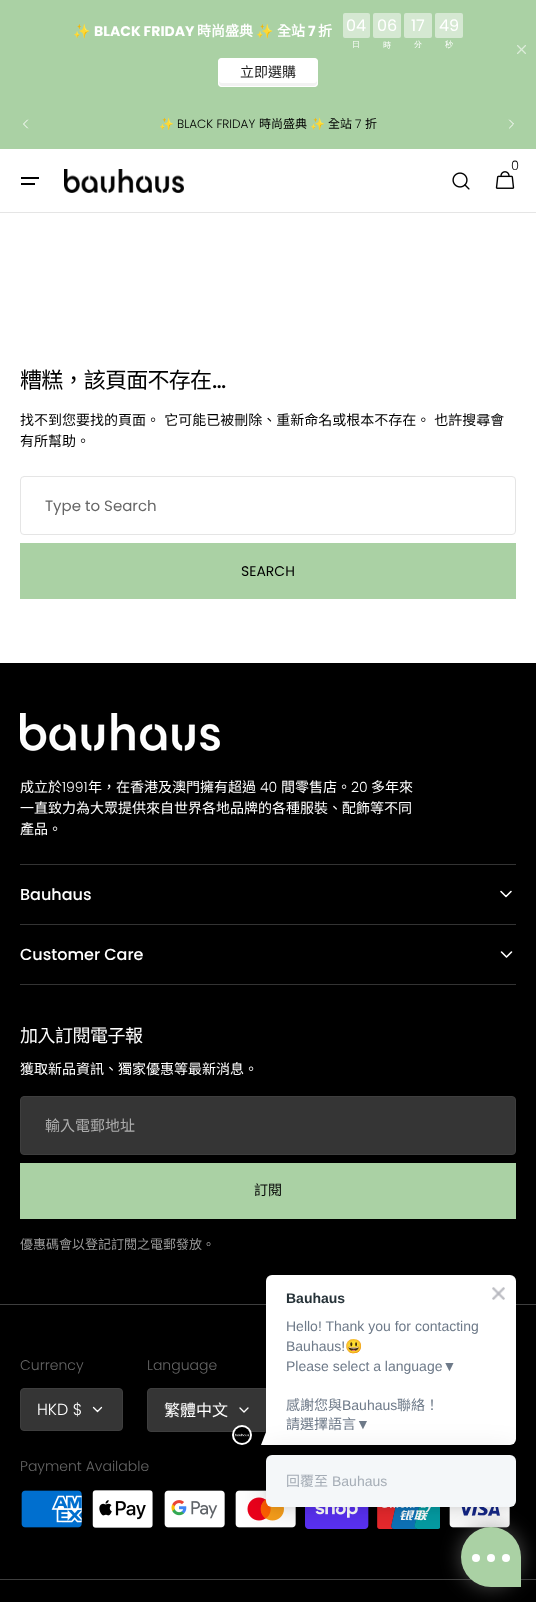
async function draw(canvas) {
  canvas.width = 536
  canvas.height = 1602
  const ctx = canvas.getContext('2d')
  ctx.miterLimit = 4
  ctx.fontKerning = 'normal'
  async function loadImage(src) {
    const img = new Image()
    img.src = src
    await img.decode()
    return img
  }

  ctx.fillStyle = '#fff'
  ctx.fillRect(0, 0, 536, 1602)
  ctx.fillStyle = '#aad1a4'
  ctx.fillRect(0, 0, 536, 149)
  ctx.font = 'bold 14px Noto Color Emoji'
  ctx.fillStyle = '#fff'
  ctx.fillText('✨', 73, 36)
  ctx.font = 'bold 14px Poppins'
  ctx.fillText('BLACK FRIDAY', 94, 36)
  ctx.font = 'bold 14px Noto Sans CJK TC'
  ctx.fillText('時尚盛典', 197, 36)
  ctx.font = 'bold 14px Noto Color Emoji'
  ctx.fillText('✨', 256, 36)
  ctx.font = 'bold 14px Noto Sans CJK TC'
  ctx.fillText('全站', 277, 36)
  ctx.font = 'bold 14px Poppins'
  ctx.fillText('7', 308, 36)
  ctx.font = 'bold 14px Noto Sans CJK TC'
  ctx.fillText('折', 318, 36)
  ctx.fillStyle = '#d5e8d2'
  ctx.beginPath()
  ctx.roundRect(343, 13, 27, 25, 2)
  ctx.fill()
  ctx.font = '16px Poppins'
  ctx.fillStyle = '#fff'
  ctx.fillText('04', 346, 31)
  ctx.font = '500 8px WenQuanYi Zen Hei'
  ctx.fillText('日', 352, 47)
  ctx.fillStyle = '#d5e8d2'
  ctx.beginPath()
  ctx.roundRect(373, 13, 28, 25, 2)
  ctx.fill()
  ctx.font = '16px Poppins'
  ctx.fillStyle = '#fff'
  ctx.fillText('06', 377, 31)
  ctx.font = '8px Noto Sans CJK TC'
  ctx.fillText('時', 383, 48)
  ctx.fillStyle = '#d5e8d2'
  ctx.beginPath()
  ctx.roundRect(404, 13, 28, 25, 2)
  ctx.fill()
  ctx.font = '16px Poppins'
  ctx.fillStyle = '#fff'
  ctx.fillText('17', 411, 31)
  ctx.font = '500 8px WenQuanYi Zen Hei'
  ctx.fillText('分', 414, 47)
  ctx.fillStyle = '#d5e8d2'
  ctx.beginPath()
  ctx.roundRect(435, 13, 28, 25, 2)
  ctx.fill()
  ctx.font = '16px Poppins'
  ctx.fillStyle = '#fff'
  ctx.fillText('49', 439, 31)
  ctx.font = '500 8px WenQuanYi Zen Hei'
  ctx.fillText('秒', 445, 47)
  ctx.beginPath()
  ctx.roundRect(218, 58, 100, 29, 4)
  ctx.fill()
  ctx.fillStyle = '#f2f2f2'
  ctx.beginPath()
  ctx.moveTo(219, 80)
  ctx.lineTo(219, 83)
  ctx.bezierCurveTo(219, 85, 220, 86, 222, 86)
  ctx.lineTo(314, 86)
  ctx.bezierCurveTo(316, 86, 317, 85, 317, 83)
  ctx.lineTo(317, 80)
  ctx.bezierCurveTo(317, 82, 316, 83, 314, 83)
  ctx.lineTo(222, 83)
  ctx.bezierCurveTo(220, 83, 219, 82, 219, 80)
  ctx.closePath()
  ctx.fill()
  ctx.beginPath()
  ctx.roundRect(218.5, 58.5, 99, 28, 3.5)
  ctx.strokeStyle = '#fff'
  ctx.stroke()
  ctx.font = '14px Noto Sans CJK TC'
  ctx.fillStyle = '#1a1a1a'
  ctx.fillText('立即選購', 240, 77)
  ctx.drawImage(await loadImage('image0.png'), 517, 45, 9, 9)
  ctx.font = '12px Noto Color Emoji'
  ctx.fillStyle = '#000'
  ctx.fillText('✨', 159, 128)
  ctx.font = '300 12px Poppins'
  ctx.fillText('BLACK FRIDAY', 177, 128)
  ctx.font = '12px Noto Sans CJK TC'
  ctx.fillText('時尚盛典', 259, 128)
  ctx.font = '12px Noto Color Emoji'
  ctx.fillText('✨', 310, 128)
  ctx.font = '12px Noto Sans CJK TC'
  ctx.fillText('全站', 328, 128)
  ctx.font = '300 12px Poppins'
  ctx.fillText('7', 355, 128)
  ctx.font = '12px Noto Sans CJK TC'
  ctx.fillText('折', 365, 128)
  ctx.beginPath()
  ctx.moveTo(27.5, 128)
  ctx.lineTo(23.5, 124)
  ctx.lineTo(27.5, 120)
  ctx.lineCap = 'round'
  ctx.lineJoin = 'round'
  ctx.stroke()
  ctx.beginPath()
  ctx.moveTo(509.5, 120)
  ctx.lineTo(513.5, 124)
  ctx.lineTo(509.5, 128)
  ctx.stroke()
  ctx.font = '300 13px Poppins'
  ctx.fillText('0', 511, 170)
  ctx.drawImage(await loadImage('image1.png'), 495, 171, 20, 18)
  ctx.drawImage(await loadImage('image2.png'), 452, 172, 18, 18)
  ctx.fillRect(21, 177, 18, 2)
  ctx.fillRect(21, 183, 14, 2)
  ctx.drawImage(await loadImage('image3.png'), 64, 169, 120, 24)
  ctx.fillStyle = '#e5e5e5'
  ctx.fillRect(0, 212, 536, 1)
  ctx.letterSpacing = '-0.75px'
  ctx.font = '22px Noto Sans CJK TC'
  ctx.fillStyle = '#000'
  ctx.fillText('糟糕，該頁面不存在', 20, 388)
  ctx.font = '500 22px Poppins'
  ctx.fillText('...', 212, 388)
  ctx.letterSpacing = '0px'
  ctx.wordSpacing = '1px'
  ctx.font = '14px Noto Sans CJK TC'
  ctx.fillText('找不到您要找的頁面。 它可能已被刪除、重新命名或根本不存在。 也許搜尋會', 20, 425)
  ctx.wordSpacing = '0px'
  ctx.fillText('有所幫助。', 20, 446)
  ctx.beginPath()
  ctx.roundRect(20.5, 476.5, 495, 58, 3.5)
  ctx.strokeStyle = '#e5e5e5'
  ctx.lineJoin = 'miter'
  ctx.stroke()
  ctx.font = '15px Poppins'
  ctx.fillStyle = '#666'
  ctx.fillText('Type to Search', 45, 511)
  ctx.fillStyle = '#aad1a4'
  ctx.fillRect(20, 543, 496, 56)
  ctx.font = '14px Poppins'
  ctx.fillStyle = '#000'
  ctx.fillText('SEARCH', 241, 576)
  ctx.fillRect(0, 663, 536, 939)
  ctx.drawImage(await loadImage('image4.png'), 20, 713, 200, 38)
  ctx.font = '14px Noto Sans CJK TC'
  ctx.fillStyle = '#fff'
  ctx.fillText('成立於', 20, 792)
  ctx.font = '300 14px Poppins'
  ctx.fillText('1991', 62, 792)
  ctx.font = '14px Noto Sans CJK TC'
  ctx.fillText('年，在香港及澳門擁有超過', 88, 792)
  ctx.font = '300 14px Poppins'
  ctx.fillText('40', 260, 792)
  ctx.font = '14px Noto Sans CJK TC'
  ctx.fillText('間零售店。', 281, 792)
  ctx.font = '300 14px Poppins'
  ctx.fillText('20', 351, 792)
  ctx.font = '14px Noto Sans CJK TC'
  ctx.fillText('多年來', 371, 792)
  ctx.fillText('一直致力為大眾提供來自世界各地品牌的各種服裝、配飾等不同', 20, 813)
  ctx.fillText('產品。', 20, 834)
  ctx.fillStyle = '#333'
  ctx.fillRect(20, 864, 496, 1)
  ctx.fillRect(20, 924, 496, 1)
  ctx.font = '500 16px Poppins'
  ctx.fillStyle = '#fff'
  ctx.fillText('Bauhaus', 20, 900)
  ctx.beginPath()
  ctx.moveTo(511, 891.5)
  ctx.lineTo(506, 896.5)
  ctx.lineTo(501, 891.5)
  ctx.strokeStyle = '#fff'
  ctx.lineWidth = 1.6
  ctx.lineJoin = 'round'
  ctx.stroke()
  ctx.fillStyle = '#333'
  ctx.fillRect(20, 984, 496, 1)
  ctx.fillStyle = '#fff'
  ctx.fillText('Customer Care', 20, 960)
  ctx.beginPath()
  ctx.moveTo(511.5, 952)
  ctx.lineTo(506.5, 957)
  ctx.lineTo(501.5, 952)
  ctx.stroke()
  ctx.letterSpacing = '-0.5px'
  ctx.font = '18px Noto Sans CJK TC'
  ctx.fillText('加入訂閱電子報', 20, 1042)
  ctx.letterSpacing = '0px'
  ctx.font = '14px Noto Sans CJK TC'
  ctx.fillText('獲取新品資訊、獨家優惠等最新消息。', 20, 1074)
  ctx.fillStyle = '#353535'
  ctx.beginPath()
  ctx.roundRect(20.5, 1096.5, 495, 58, 3.5)
  ctx.fill()
  ctx.strokeStyle = '#3e3e3e'
  ctx.lineWidth = 1
  ctx.lineJoin = 'miter'
  ctx.stroke()
  ctx.font = '15px Noto Sans CJK TC'
  ctx.fillStyle = '#aeaeae'
  ctx.fillText('輸入電郵地址', 45, 1131)
  ctx.fillStyle = '#aad1a4'
  ctx.fillRect(20, 1163, 496, 56)
  ctx.font = '14px Noto Sans CJK TC'
  ctx.fillStyle = '#000'
  ctx.fillText('訂閱', 254, 1195)
  ctx.font = '13px Noto Sans CJK TC'
  ctx.fillStyle = '#999'
  ctx.fillText('優惠碼會以登記訂閱之電郵發放。', 20, 1249)
  ctx.fillStyle = '#3e3e3e'
  ctx.fillRect(0, 1304, 536, 1)
  ctx.fillRect(0, 1579, 536, 1)
  ctx.font = '300 14px Poppins'
  ctx.fillStyle = '#666'
  ctx.fillText('Currency', 20, 1370)
  ctx.fillStyle = '#353535'
  ctx.beginPath()
  ctx.roundRect(20.5, 1388.5, 102, 42, 3.5)
  ctx.fill()
  ctx.stroke()
  ctx.font = '300 16px Poppins'
  ctx.fillStyle = '#fff'
  ctx.fillText('HKD $', 37, 1415)
  ctx.beginPath()
  ctx.moveTo(101.5, 1407.5)
  ctx.lineTo(97.5, 1411.5)
  ctx.lineTo(93.5, 1407.5)
  ctx.strokeStyle = '#fff'
  ctx.lineWidth = 1.3
  ctx.lineJoin = 'round'
  ctx.stroke()
  ctx.font = '300 14px Poppins'
  ctx.fillStyle = '#666'
  ctx.fillText('Language', 147, 1370)
  ctx.fillStyle = '#353535'
  ctx.beginPath()
  ctx.roundRect(147.5, 1388.5, 121, 43, 3.5)
  ctx.fill()
  ctx.strokeStyle = '#3e3e3e'
  ctx.lineWidth = 1
  ctx.lineJoin = 'miter'
  ctx.stroke()
  ctx.font = '16px Noto Sans CJK TC'
  ctx.fillStyle = '#fff'
  ctx.fillText('繁體中文', 164, 1416)
  ctx.beginPath()
  ctx.moveTo(248, 1408)
  ctx.lineTo(244, 1412)
  ctx.lineTo(240, 1408)
  ctx.strokeStyle = '#fff'
  ctx.lineWidth = 1.3
  ctx.lineJoin = 'round'
  ctx.stroke()
  ctx.font = '300 14px Poppins'
  ctx.fillStyle = '#666'
  ctx.fillText('Payment Available', 20, 1471)
  ctx.drawImage(await loadImage('image5.png'), 21, 1490, 61, 38)
  ctx.drawImage(await loadImage('image6.png'), 92, 1490, 61, 38)
  ctx.drawImage(await loadImage('image7.png'), 164, 1490, 61, 38)
  ctx.drawImage(await loadImage('image8.png'), 235, 1490, 61, 38)
  ctx.drawImage(await loadImage('image9.png'), 305, 1507, 64, 22)
  ctx.drawImage(await loadImage('image10.png'), 377, 1507, 63, 22)
  ctx.drawImage(await loadImage('image11.png'), 449, 1507, 61, 21)
  ctx.fillStyle = '#fff'
  ctx.beginPath()
  ctx.roundRect(266, 1275, 250, 170, [6, 6, 6, 0])
  ctx.fill()
  ctx.font = 'bold 14px Liberation Sans'
  ctx.fillStyle = '#263238'
  ctx.fillText('Bauhaus', 286, 1303)
  ctx.drawImage(await loadImage('image12.png'), 492, 1287, 13, 13)
  ctx.font = '14px Liberation Sans'
  ctx.fillStyle = '#6e7a89'
  ctx.fillText('Hello! Thank you for contacting', 286, 1331)
  ctx.fillText('Bauhaus!', 286, 1351)
  ctx.font = '14px Noto Color Emoji'
  ctx.fillText('😃', 345, 1351)
  ctx.font = '14px Liberation Sans'
  ctx.fillText('Please select a language▼', 286, 1371)
  ctx.font = '14px Noto Sans CJK TC'
  ctx.fillText('感謝您與', 286, 1410)
  ctx.font = '14px Liberation Sans'
  ctx.fillText('Bauhaus', 342, 1410)
  ctx.font = '14px Noto Sans CJK TC'
  ctx.fillText('聯絡！', 397, 1410)
  ctx.fillText('請選擇語言', 286, 1429)
  ctx.font = '14px Liberation Sans'
  ctx.fillText('▼', 356, 1429)
  ctx.fillStyle = '#fff'
  ctx.beginPath()
  ctx.moveTo(266, 1445)
  ctx.lineTo(261, 1445)
  ctx.lineTo(266, 1432)
  ctx.closePath()
  ctx.fill()
  ctx.fillStyle = '#00000029'
  ctx.filter = 'blur(16px)'
  ctx.beginPath()
  ctx.roundRect(266, 1457, 250, 52, 6)
  ctx.fill()
  ctx.filter = 'none'
  ctx.fillStyle = '#fff'
  ctx.beginPath()
  ctx.arc(242, 1435, 9, 0, 2 * Math.PI)
  ctx.fill()
  ctx.lineWidth = 2
  ctx.stroke()
  ctx.drawImage(await loadImage('image13.png'), 234, 1427, 16, 16)
  ctx.fillStyle = '#0000000f'
  ctx.filter = 'blur(3px)'
  ctx.beginPath()
  ctx.roundRect(266, 1456, 250, 52, 6)
  ctx.fill()
  ctx.filter = 'none'
  ctx.fillStyle = '#f4f7f9'
  ctx.beginPath()
  ctx.roundRect(266, 1455, 250, 52, 6)
  ctx.fill()
  ctx.font = '14px Noto Sans CJK TC'
  ctx.fillStyle = '#a5adb6'
  ctx.fillText('回覆至', 286, 1486)
  ctx.font = '14px Liberation Sans'
  ctx.fillText('Bauhaus', 332, 1486)
  ctx.fillStyle = '#777777a3'
  ctx.filter = 'blur(10px)'
  ctx.beginPath()
  ctx.roundRect(461, 1527, 60, 60, 30)
  ctx.fill()
  ctx.filter = 'none'
  ctx.fillStyle = '#aad1a4'
  ctx.beginPath()
  ctx.roundRect(461, 1527, 60, 60, [30, 30, 0, 30])
  ctx.fill()
  ctx.fillStyle = '#fff'
  ctx.beginPath()
  ctx.arc(476, 1558, 4, 0, 2 * Math.PI)
  ctx.fill()
  ctx.beginPath()
  ctx.arc(491, 1558, 4, 0, 2 * Math.PI)
  ctx.fill()
  ctx.beginPath()
  ctx.arc(506, 1558, 4, 0, 2 * Math.PI)
  ctx.fill()
}

draw(document.querySelector('canvas'))
